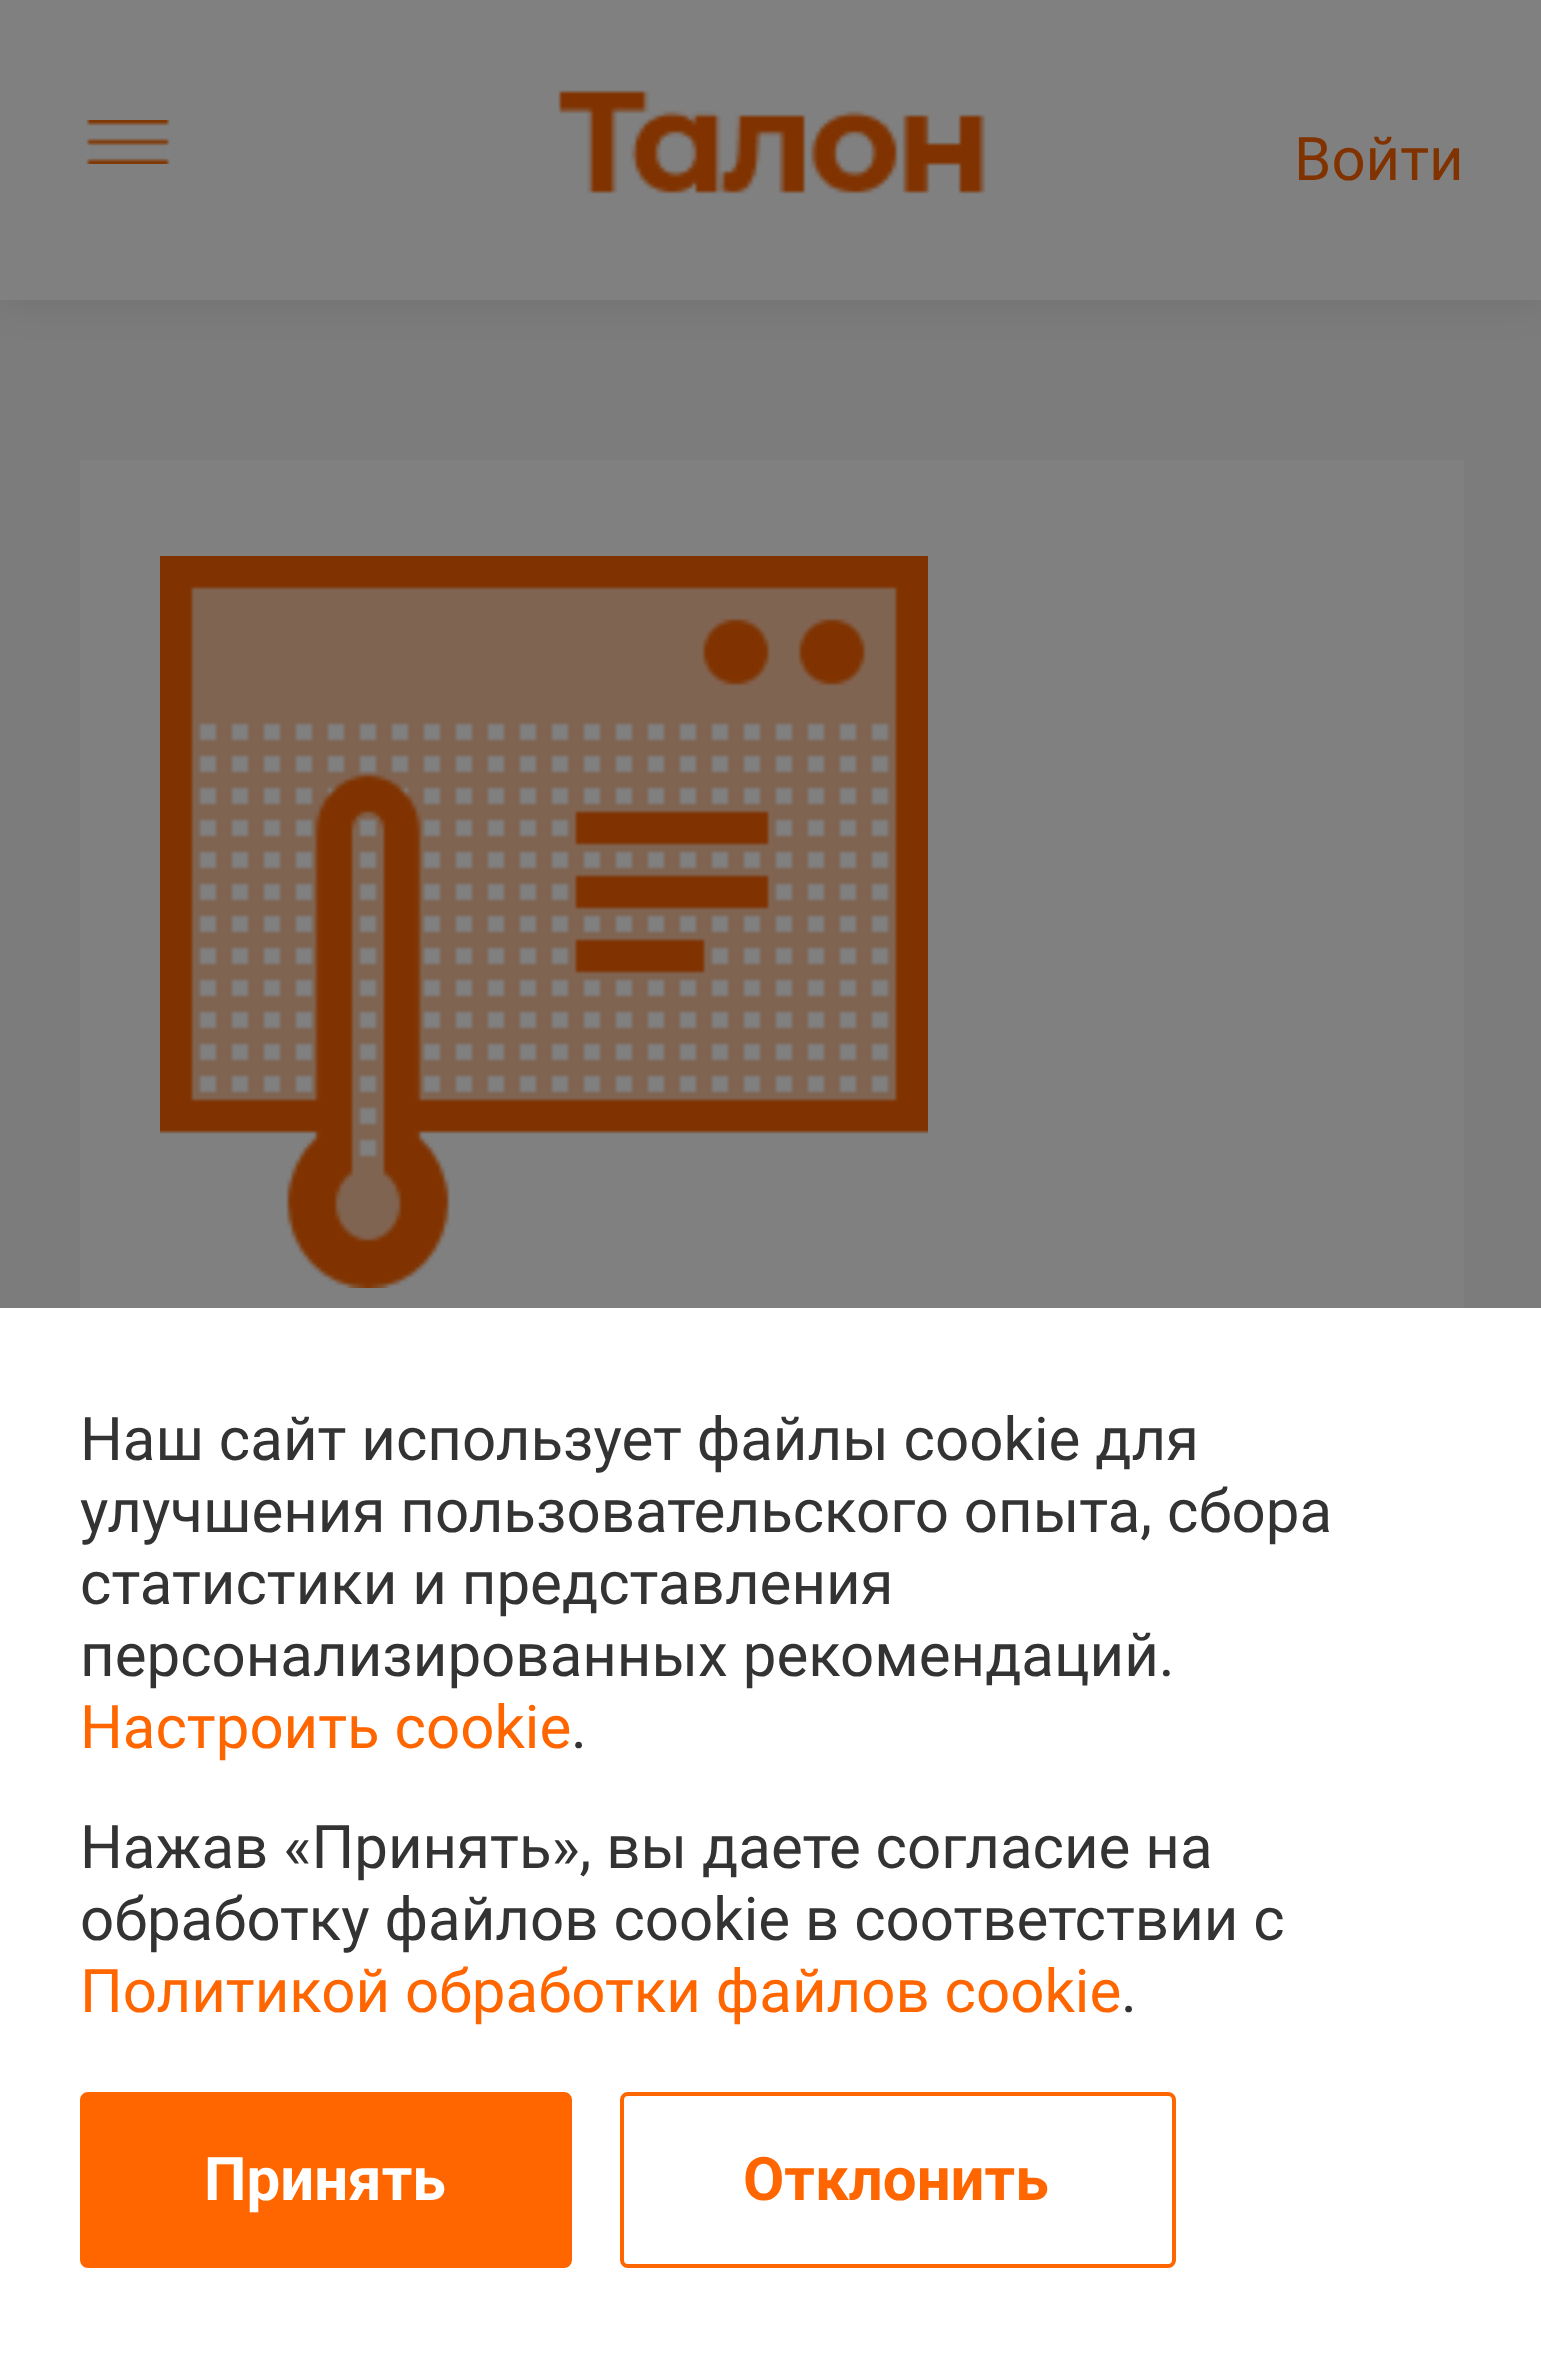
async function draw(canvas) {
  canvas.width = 1541
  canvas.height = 2361
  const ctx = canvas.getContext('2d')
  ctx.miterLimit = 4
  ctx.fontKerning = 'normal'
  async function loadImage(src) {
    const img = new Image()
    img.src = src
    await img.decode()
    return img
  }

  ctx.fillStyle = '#7c7c7c'
  ctx.fillRect(0, 0, 1541, 2361)
  ctx.fillStyle = '#0000001a'
  ctx.filter = 'blur(20px)'
  ctx.beginPath()
  ctx.rect(0, 0, 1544, 300)
  ctx.fill()
  ctx.filter = 'none'
  ctx.fillStyle = '#808080'
  ctx.fillRect(0, 0, 1541, 300)
  ctx.drawImage(await loadImage('image0.png'), 86, 120, 84, 44)
  ctx.drawImage(await loadImage('image1.png'), 558, 90, 428, 104)
  ctx.font = '60px Roboto'
  ctx.fillStyle = '#803300'
  ctx.fillText('Войти', 1294, 180)
  ctx.fillStyle = '#808080'
  ctx.fillRect(80, 460, 1384, 848)
  ctx.drawImage(await loadImage('image2.png'), 160, 556, 768, 732)
  ctx.fillStyle = '#fff'
  ctx.fillRect(0, 1308, 1541, 1053)
  ctx.fillStyle = '#333'
  ctx.fillText('Наш сайт использует файлы cookie для', 80, 1460)
  ctx.fillText('улучшения пользовательского опыта, сбора', 80, 1532)
  ctx.fillText('статистики и представления', 80, 1604)
  ctx.fillText('персонализированных рекомендаций.', 80, 1676)
  ctx.fillStyle = '#f60'
  ctx.fillText('Настроить cookie', 80, 1748)
  ctx.fillStyle = '#333'
  ctx.fillText('.', 571, 1748)
  ctx.fillText('Нажав «Принять», вы даете согласие на', 80, 1868)
  ctx.fillText('обработку файлов cookie в соответствии с', 80, 1940)
  ctx.fillStyle = '#f60'
  ctx.fillText('Политикой обработки файлов cookie', 80, 2012)
  ctx.fillStyle = '#333'
  ctx.fillText('.', 1121, 2012)
  ctx.fillStyle = '#f60'
  ctx.beginPath()
  ctx.roundRect(82, 2094, 488, 172, 6)
  ctx.fill()
  ctx.strokeStyle = '#f60'
  ctx.lineWidth = 4
  ctx.stroke()
  ctx.font = 'bold 60px Roboto'
  ctx.fillStyle = '#fff'
  ctx.fillText('Принять', 204, 2200)
  ctx.beginPath()
  ctx.roundRect(622, 2094, 552, 172, 6)
  ctx.stroke()
  ctx.fillStyle = '#f60'
  ctx.fillText('Отклонить', 743, 2200)
}

draw(document.querySelector('canvas'))
